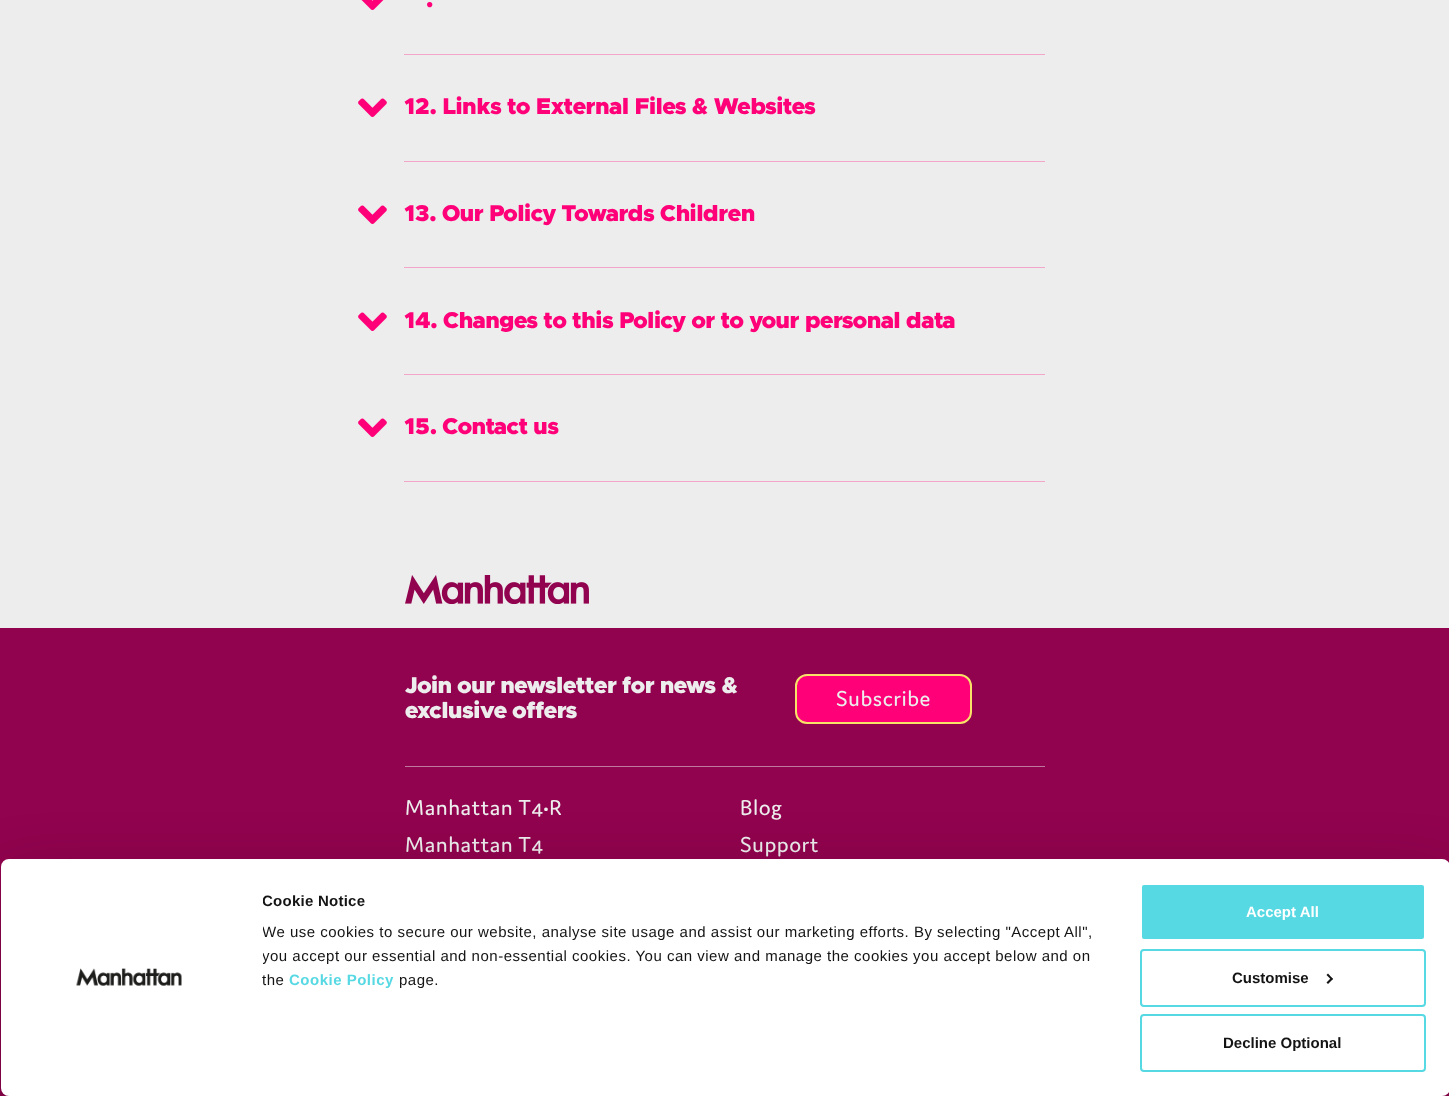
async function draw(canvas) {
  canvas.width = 1449
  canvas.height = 1096
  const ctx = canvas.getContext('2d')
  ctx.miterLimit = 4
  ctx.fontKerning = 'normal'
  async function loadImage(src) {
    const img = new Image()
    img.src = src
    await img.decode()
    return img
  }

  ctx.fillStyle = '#ededed'
  ctx.fillRect(0, 0, 1449, 1096)
  ctx.drawImage(await loadImage('image0.png'), 361, 0, 23, 10)
  ctx.letterSpacing = '-0.45px'
  ctx.font = '900 23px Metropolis'
  ctx.fillStyle = '#ff0079'
  ctx.fillText('.', 426, 7)
  ctx.fillStyle = '#f2a6ca'
  ctx.fillRect(404, 54, 641, 1)
  ctx.drawImage(await loadImage('image1.png'), 358, 98, 29, 19)
  ctx.fillStyle = '#ff0079'
  ctx.fillText('12. Links to External Files & Websites', 404, 114)
  ctx.fillStyle = '#f2a6ca'
  ctx.fillRect(404, 161, 641, 1)
  ctx.drawImage(await loadImage('image1.png'), 358, 205, 29, 19)
  ctx.fillStyle = '#ff0079'
  ctx.fillText('13. Our Policy Towards Children', 404, 221)
  ctx.fillStyle = '#f2a6ca'
  ctx.fillRect(404, 267, 641, 1)
  ctx.drawImage(await loadImage('image1.png'), 358, 312, 29, 19)
  ctx.fillStyle = '#ff0079'
  ctx.fillText('14. Changes to this Policy or to your personal data', 404, 328)
  ctx.fillStyle = '#f2a6ca'
  ctx.fillRect(404, 374, 641, 1)
  ctx.drawImage(await loadImage('image1.png'), 358, 418, 29, 19)
  ctx.fillStyle = '#ff0079'
  ctx.fillText('15. Contact us', 404, 434)
  ctx.fillStyle = '#f2a6ca'
  ctx.fillRect(404, 481, 641, 1)
  ctx.drawImage(await loadImage('image2.png'), 405, 575, 184, 29)
  ctx.fillStyle = '#91034e'
  ctx.fillRect(0, 628, 1449, 468)
  ctx.fillStyle = '#ededed'
  ctx.fillText('Join our newsletter for news &', 405, 693)
  ctx.fillText('exclusive offers', 405, 718)
  ctx.fillStyle = '#ff0079'
  ctx.beginPath()
  ctx.roundRect(796, 675, 175, 48, 11)
  ctx.fill()
  ctx.strokeStyle = '#f7e368'
  ctx.lineWidth = 2
  ctx.stroke()
  ctx.letterSpacing = '0.5px'
  ctx.font = '23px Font'
  ctx.fillStyle = '#ededed'
  ctx.fillText('Subscribe', 836, 706)
  ctx.fillStyle = '#bf789e'
  ctx.fillRect(405, 766, 640, 1)
  ctx.fillStyle = '#ededed'
  ctx.fillText('Manhattan T4•R', 405, 815)
  ctx.fillText('Manhattan T4', 405, 852)
  ctx.fillText('Blog', 740, 815)
  ctx.fillText('Support', 740, 852)
  ctx.fillStyle = '#0000004d'
  ctx.filter = 'blur(35px)'
  ctx.beginPath()
  ctx.roundRect(1, 889, 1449, 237, 8)
  ctx.fill()
  ctx.filter = 'none'
  ctx.fillStyle = '#fff'
  ctx.beginPath()
  ctx.roundRect(1, 859, 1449, 237, 8)
  ctx.fill()
  ctx.drawImage(await loadImage('image3.png'), 76, 968, 106, 18)
  ctx.save()
  ctx.beginPath()
  ctx.rect(263, 889, 871, 103)
  ctx.clip()
  ctx.letterSpacing = '0.25px'
  ctx.font = 'bold 15px Liberation Sans'
  ctx.fillStyle = '#141414'
  ctx.fillText('Cookie Notice', 262, 906)
  ctx.letterSpacing = '0.5px'
  ctx.font = '15px Liberation Sans'
  ctx.fillText('We use cookies to secure our website, analyse site usage and assist our marketing efforts. By selecting "Accept All",', 262, 937)
  ctx.fillText('you accept our essential and non-essential cookies. You can view and manage the cookies you accept below and on', 262, 961)
  ctx.restore()
  ctx.font = '15px Liberation Sans'
  ctx.fillStyle = '#141414'
  ctx.fillText('the', 262, 985)
  ctx.font = 'bold 15px Liberation Sans'
  ctx.fillStyle = '#57d9e3'
  ctx.fillText('Cookie Policy', 289, 985)
  ctx.font = '15px Liberation Sans'
  ctx.fillStyle = '#141414'
  ctx.fillText('page.', 399, 985)
  ctx.fillStyle = '#57d9e3'
  ctx.beginPath()
  ctx.roundRect(1141, 884, 284, 56, 3)
  ctx.fill()
  ctx.strokeStyle = '#fff'
  ctx.stroke()
  ctx.letterSpacing = '0px'
  ctx.font = 'bold 15px Liberation Sans'
  ctx.fillStyle = '#fff'
  ctx.fillText('Accept All', 1246, 917)
  ctx.beginPath()
  ctx.roundRect(1141, 950, 284, 56, 3)
  ctx.strokeStyle = '#57d9e3'
  ctx.stroke()
  ctx.fillStyle = '#141414'
  ctx.fillText('Customise', 1232, 983)
  ctx.beginPath()
  ctx.moveTo(1328, 973.5)
  ctx.lineTo(1333, 979)
  ctx.lineTo(1331.5, 980)
  ctx.lineTo(1326.5, 975)
  ctx.closePath()
  ctx.fill()
  ctx.beginPath()
  ctx.moveTo(1331.5, 977.5)
  ctx.lineTo(1333, 979)
  ctx.lineTo(1328, 984)
  ctx.lineTo(1326.5, 982.5)
  ctx.closePath()
  ctx.fill()
  ctx.beginPath()
  ctx.roundRect(1141, 1015, 284, 56, 3)
  ctx.stroke()
  ctx.fillText('Decline Optional', 1223, 1048)
}

draw(document.querySelector('canvas'))
